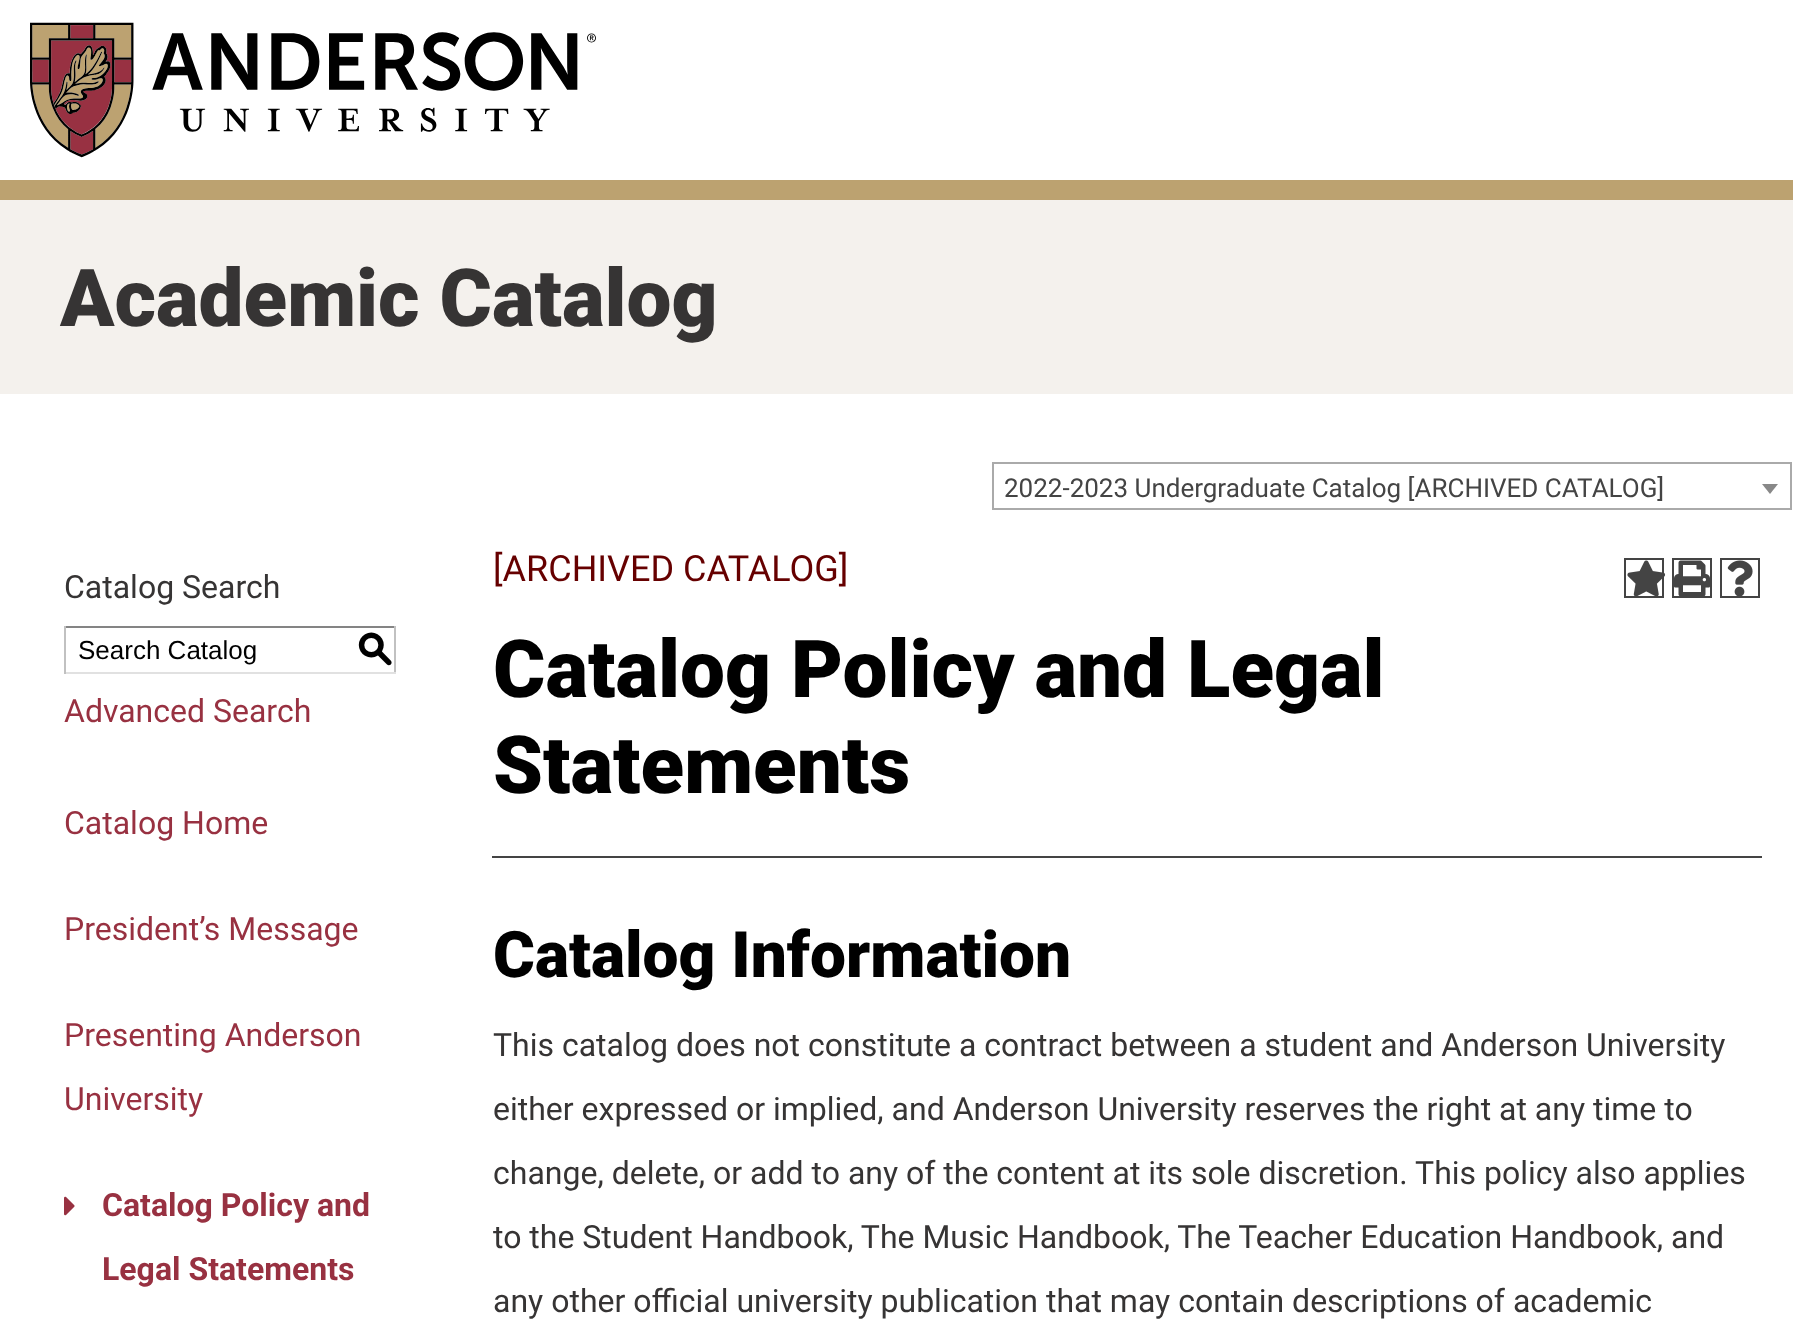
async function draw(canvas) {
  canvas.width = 1793
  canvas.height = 1339
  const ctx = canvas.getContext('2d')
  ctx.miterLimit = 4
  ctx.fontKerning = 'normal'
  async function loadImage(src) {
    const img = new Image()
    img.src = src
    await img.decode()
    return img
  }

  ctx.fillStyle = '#fff'
  ctx.fillRect(0, 0, 1793, 1339)
  ctx.fillStyle = '#bca270'
  ctx.fillRect(0, 180, 1793, 20)
  ctx.drawImage(await loadImage('image0.png'), 30, 22, 566, 136)
  ctx.fillStyle = '#f4f1ed'
  ctx.fillRect(0, 200, 1793, 194)
  ctx.font = '900 80px Roboto'
  ctx.fillStyle = '#363434'
  ctx.fillText('Academic Catalog', 60, 326)
  ctx.strokeStyle = '#aaa'
  ctx.lineWidth = 2
  ctx.strokeRect(993, 463, 798, 46)
  ctx.font = '26px Roboto'
  ctx.fillStyle = '#444'
  ctx.fillText('2022-2023 Undergraduate Catalog [ARCHIVED CATALOG]', 1004, 497)
  ctx.fillStyle = '#888'
  ctx.beginPath()
  ctx.moveTo(1762, 484)
  ctx.lineTo(1778, 484)
  ctx.lineTo(1770, 494)
  ctx.closePath()
  ctx.fill()
  ctx.font = '32px Roboto'
  ctx.fillStyle = '#363434'
  ctx.fillText('Catalog Search', 64, 598)
  ctx.fillStyle = '#848484'
  ctx.fillRect(64, 626, 332, 2)
  ctx.fillStyle = '#c1c1c1'
  ctx.fillRect(394, 626, 2, 48)
  ctx.fillStyle = '#e1e1e1'
  ctx.fillRect(64, 672, 332, 2)
  ctx.fillStyle = '#c1c1c1'
  ctx.fillRect(64, 626, 2, 48)
  ctx.font = '26px Liberation Sans'
  ctx.fillStyle = '#000'
  ctx.fillText('Search Catalog', 78, 659)
  ctx.font = '500 36px "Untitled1"'
  ctx.fillText('S', 357, 660)
  ctx.font = '32px Roboto'
  ctx.fillStyle = '#983141'
  ctx.fillText('Advanced Search', 64, 722)
  ctx.fillText('Catalog Home', 64, 834)
  ctx.fillText('President’s Message', 64, 940)
  ctx.fillText('Presenting Anderson', 64, 1046)
  ctx.fillText('University', 64, 1110)
  ctx.drawImage(await loadImage('image1.png'), 64, 1196, 11, 20)
  ctx.font = 'bold 32px Roboto'
  ctx.fillText('Catalog Policy and', 102, 1216)
  ctx.fillText('Legal Statements', 102, 1280)
  ctx.font = '36px Roboto'
  ctx.fillStyle = '#600'
  ctx.fillText('[ARCHIVED CATALOG]', 493, 581)
  ctx.strokeStyle = '#444'
  ctx.strokeRect(1625, 559, 38, 38)
  ctx.drawImage(await loadImage('image2.png'), 1627, 560, 39, 36)
  ctx.strokeRect(1673, 559, 38, 38)
  ctx.drawImage(await loadImage('image3.png'), 1674, 560, 36, 36)
  ctx.strokeRect(1721, 559, 38, 38)
  ctx.drawImage(await loadImage('image4.png'), 1727, 560, 26, 36)
  ctx.font = '900 80px Roboto'
  ctx.fillStyle = '#000'
  ctx.fillText('Catalog Policy and Legal', 493, 697)
  ctx.fillText('Statements', 493, 793)
  ctx.fillStyle = '#444'
  ctx.fillRect(492, 856, 1270, 2)
  ctx.font = '900 64px Roboto'
  ctx.fillStyle = '#000'
  ctx.fillText('Catalog Information', 493, 977)
  ctx.font = '32px Roboto'
  ctx.fillStyle = '#363434'
  ctx.fillText('This catalog does not constitute a contract between a student and Anderson University', 493, 1056)
  ctx.fillText('either expressed or implied, and Anderson University reserves the right at any time to', 493, 1120)
  ctx.fillText('change, delete, or add to any of the content at its sole discretion. This policy also applies', 493, 1184)
  ctx.fillText('to the Student Handbook, The Music Handbook, The Teacher Education Handbook, and', 493, 1248)
  ctx.fillText('any other official university publication that may contain descriptions of academic', 493, 1312)
}

draw(document.querySelector('canvas'))
